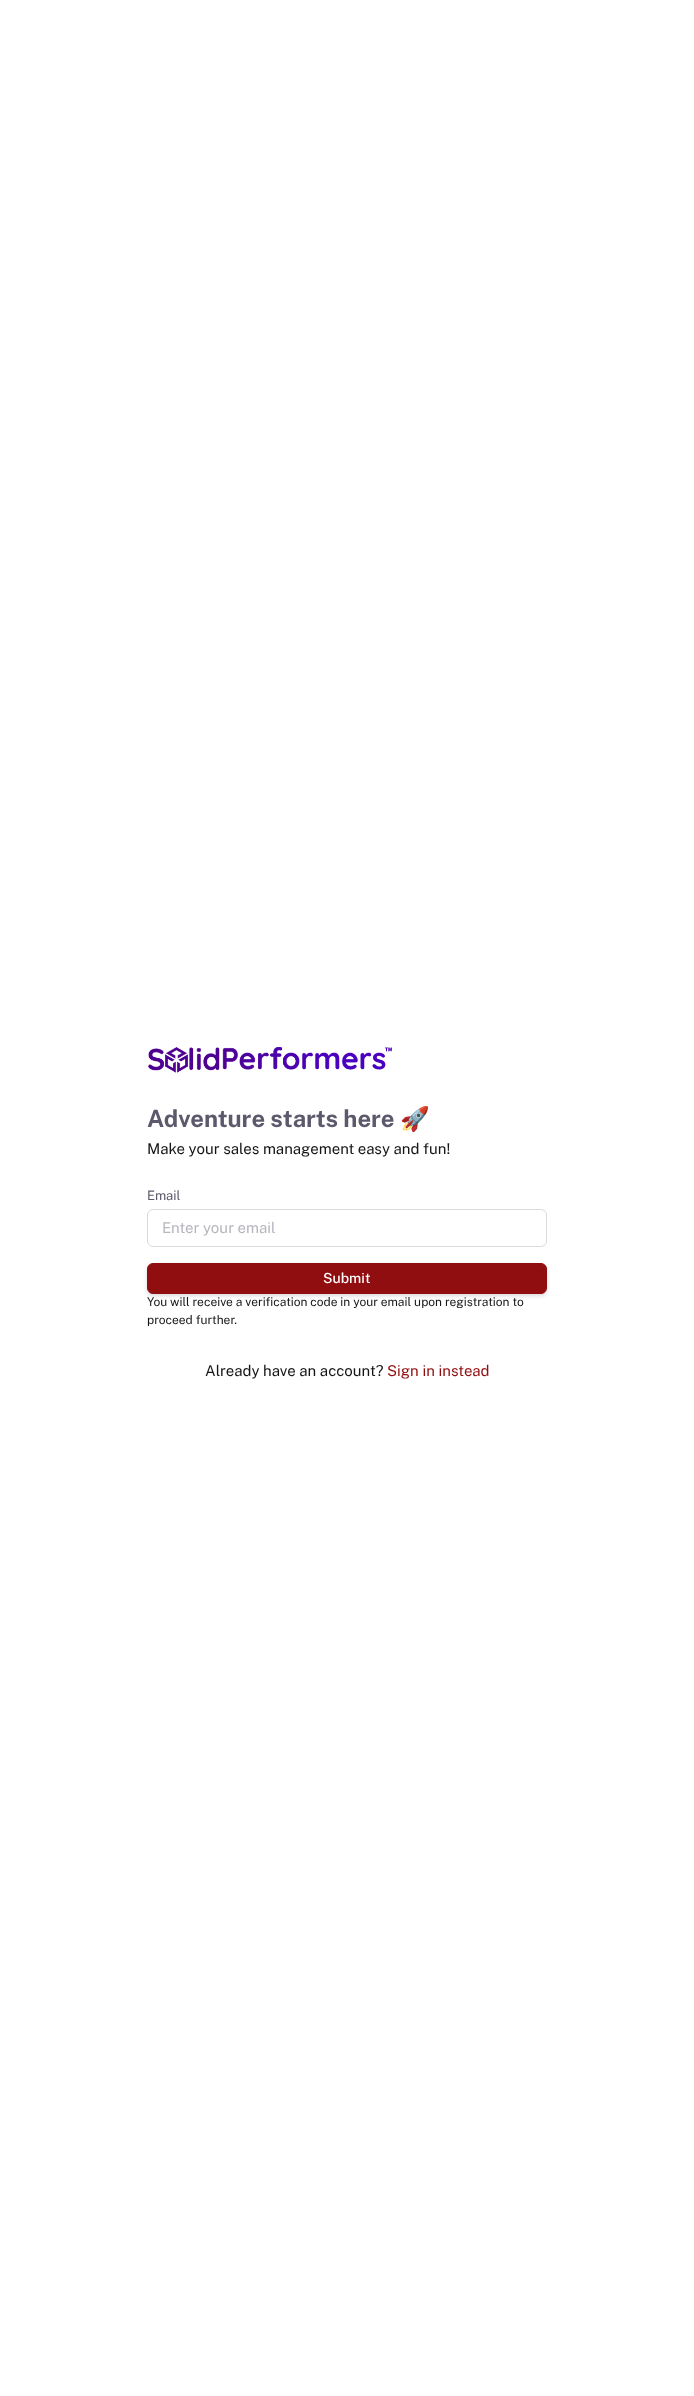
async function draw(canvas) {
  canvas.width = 694
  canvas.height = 2396
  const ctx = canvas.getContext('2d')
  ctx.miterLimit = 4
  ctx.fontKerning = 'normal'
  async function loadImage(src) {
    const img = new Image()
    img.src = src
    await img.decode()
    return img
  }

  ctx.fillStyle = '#fff'
  ctx.fillRect(0, 0, 694, 2396)
  ctx.drawImage(await loadImage('image0.png'), 148, 1047, 244, 26)
  ctx.font = 'bold 23.75px Public Sans'
  ctx.fillStyle = '#5d596c'
  ctx.fillText('Adventure starts here', 147, 1127)
  ctx.font = 'bold 23.75px Noto Color Emoji'
  ctx.fillText('🚀', 400, 1127)
  ctx.font = '15px Public Sans'
  ctx.fillStyle = '#151617'
  ctx.fillText('Make your sales management easy and fun!', 147, 1154)
  ctx.font = '13px Public Sans'
  ctx.fillStyle = '#5d596c'
  ctx.fillText('Email', 147, 1200)
  ctx.beginPath()
  ctx.roundRect(147.5, 1209.5, 399, 37, 5.5)
  ctx.strokeStyle = '#dbdade'
  ctx.stroke()
  ctx.font = '15px Public Sans'
  ctx.fillStyle = '#b7b5be'
  ctx.fillText('Enter your email', 162, 1233)
  ctx.fillStyle = '#a5a3ae66'
  ctx.filter = 'blur(2px)'
  ctx.beginPath()
  ctx.roundRect(147, 1265, 400, 31, 6)
  ctx.fill()
  ctx.filter = 'none'
  ctx.fillStyle = '#910e10'
  ctx.beginPath()
  ctx.roundRect(147.5, 1263.5, 399, 30, 5.5)
  ctx.fill()
  ctx.strokeStyle = '#910e10'
  ctx.stroke()
  ctx.font = '500 14px Public Sans'
  ctx.fillStyle = '#fff'
  ctx.fillText('Submit', 323, 1283)
  ctx.font = '12px Public Sans'
  ctx.fillStyle = '#151617'
  ctx.fillText('You will receive a verification code in your email upon registration to', 147, 1306)
  ctx.fillText('proceed further.', 147, 1324)
  ctx.font = '15px Public Sans'
  ctx.fillText('Already have an account?', 205, 1376)
  ctx.fillStyle = '#910e10'
  ctx.fillText('Sign in instead', 387, 1376)
}

draw(document.querySelector('canvas'))
